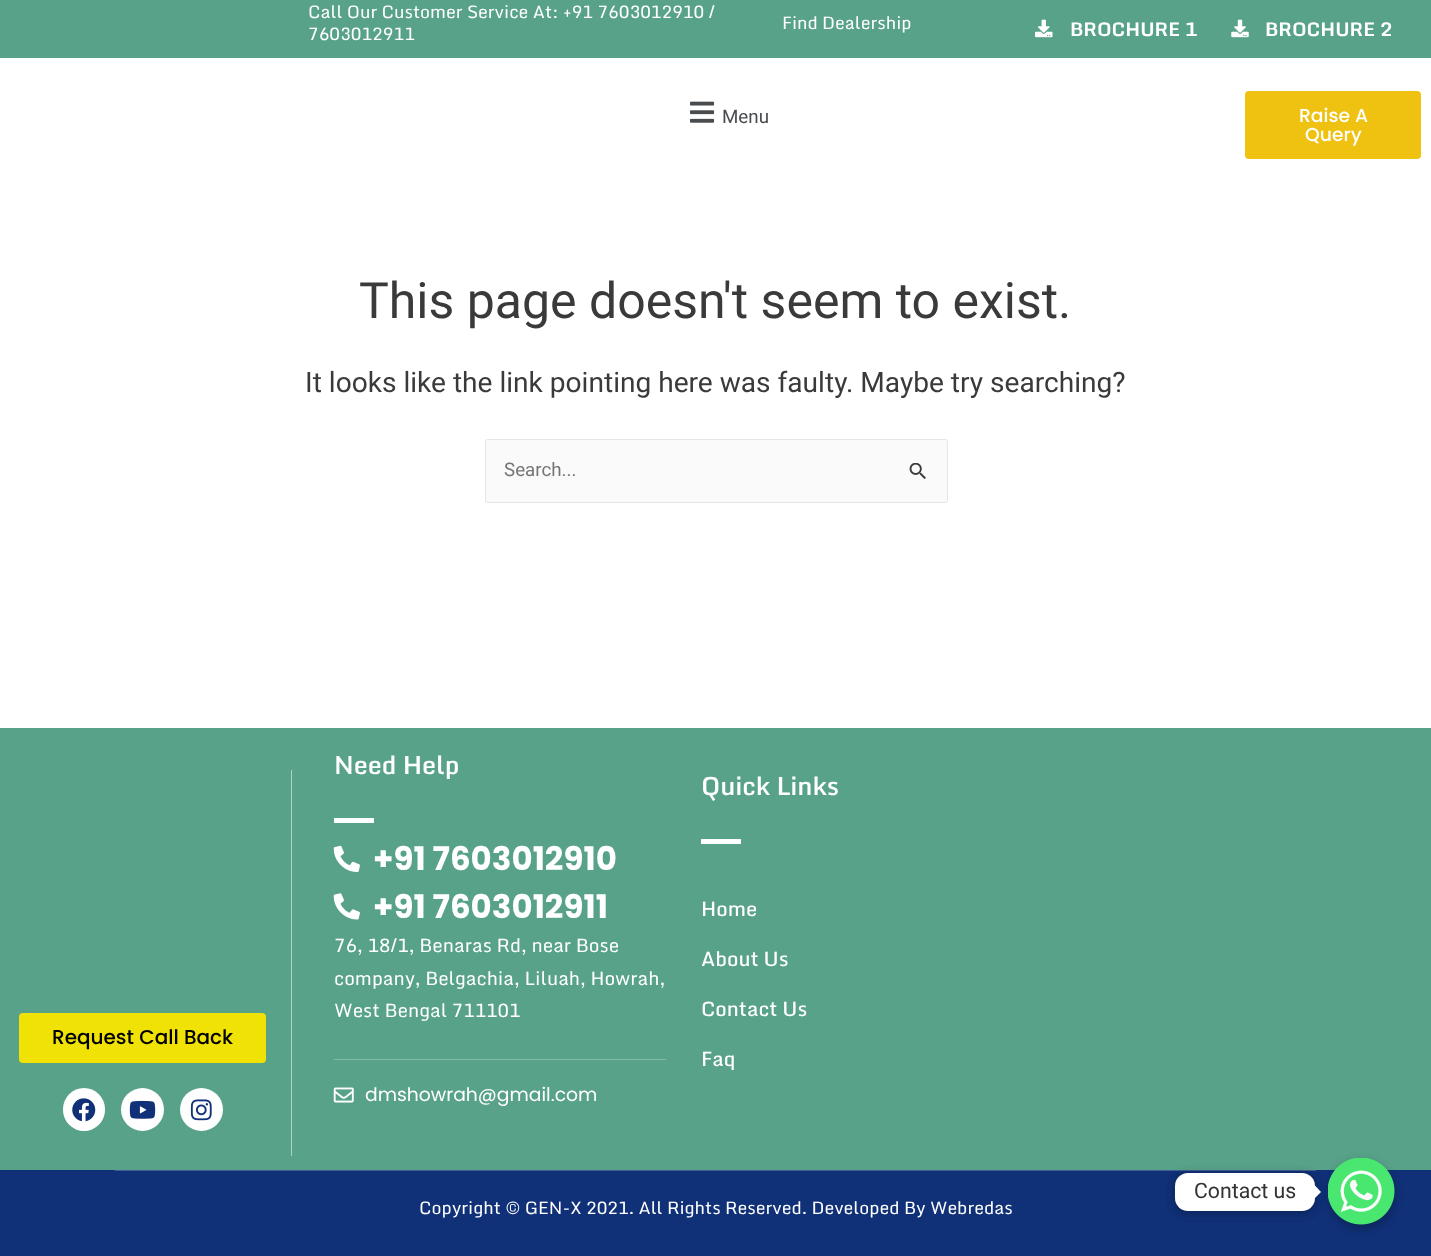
async function draw(canvas) {
  canvas.width = 1431
  canvas.height = 1256
  const ctx = canvas.getContext('2d')
  ctx.miterLimit = 4
  ctx.fontKerning = 'normal'
  async function loadImage(src) {
    const img = new Image()
    img.src = src
    await img.decode()
    return img
  }

  ctx.fillStyle = '#fff'
  ctx.fillRect(0, 0, 1431, 1256)
  ctx.fillStyle = '#58a28a'
  ctx.fillRect(0, 0, 1431, 58)
  ctx.font = '17.5px Monda'
  ctx.fillStyle = '#fff'
  ctx.fillText('Call Our Customer Service At: +91 7603012910 /', 308, 18)
  ctx.fillText('7603012911', 308, 40)
  ctx.fillText('Find Dealership', 782, 29)
  ctx.drawImage(await loadImage('image0.png'), 1035, 19, 18, 19)
  ctx.font = 'bold 18.75px Monda'
  ctx.fillText('BROCHURE 1', 1070, 36)
  ctx.drawImage(await loadImage('image1.png'), 1231, 19, 18, 19)
  ctx.fillText('BROCHURE 2', 1265, 36)
  ctx.drawImage(await loadImage('image2.png'), 690, 101, 25, 22)
  ctx.font = '18.75px Roboto'
  ctx.fillStyle = '#494c4f'
  ctx.fillText('Menu', 722, 123)
  ctx.fillStyle = '#efc110'
  ctx.beginPath()
  ctx.roundRect(1245, 91, 176, 68, 4)
  ctx.fill()
  ctx.font = '500 18.75px Poppins'
  ctx.fillStyle = '#fff'
  ctx.fillText('Raise A', 1299, 122)
  ctx.fillText('Query', 1305, 141)
  ctx.font = '50px Roboto'
  ctx.fillStyle = '#3a3a3a'
  ctx.fillText('This page doesn\'t seem to exist.', 359, 318)
  ctx.font = '28.1px Roboto'
  ctx.fillText('It looks like the link pointing here was faulty. Maybe try searching?', 305, 392)
  ctx.fillStyle = '#fafafa'
  ctx.beginPath()
  ctx.roundRect(485.5, 439.5, 462, 63, 2)
  ctx.fill()
  ctx.strokeStyle = '#e5e5e5'
  ctx.stroke()
  ctx.font = '18.75px Roboto'
  ctx.fillStyle = '#757575'
  ctx.fillText('Search...', 504, 476)
  ctx.drawImage(await loadImage('image3.png'), 909, 463, 17, 16)
  ctx.fillStyle = '#58a28a'
  ctx.fillRect(0, 728, 1431, 442)
  ctx.fillStyle = '#acd1c5'
  ctx.fillRect(291, 770, 1, 386)
  ctx.fillStyle = '#f1e206'
  ctx.beginPath()
  ctx.roundRect(19, 1013, 247, 50, 4)
  ctx.fill()
  ctx.font = '500 20px Poppins'
  ctx.fillStyle = '#000'
  ctx.fillText('Request Call Back', 52, 1044)
  ctx.fillStyle = '#fff'
  ctx.beginPath()
  ctx.roundRect(63, 1088, 42, 43, 21)
  ctx.fill()
  ctx.drawImage(await loadImage('image4.png'), 72, 1098, 24, 24)
  ctx.beginPath()
  ctx.arc(142.5, 1109.5, 21.5, 0, 2 * Math.PI)
  ctx.fill()
  ctx.drawImage(await loadImage('image5.png'), 129, 1100, 27, 19)
  ctx.beginPath()
  ctx.arc(201.5, 1109.5, 21.5, 0, 2 * Math.PI)
  ctx.fill()
  ctx.drawImage(await loadImage('image6.png'), 190, 1099, 22, 22)
  ctx.font = '600 25px Monda'
  ctx.fillText('Need Help', 334, 774)
  ctx.fillRect(334, 818, 40, 5)
  ctx.drawImage(await loadImage('image7.png'), 333, 845, 27, 27)
  ctx.font = 'bold 32.5px Poppins'
  ctx.fillText('+91 7603012910', 373, 870)
  ctx.drawImage(await loadImage('image8.png'), 333, 893, 27, 27)
  ctx.fillText('+91 7603012911', 373, 918)
  ctx.fillStyle = '#82b9a7'
  ctx.fillRect(334, 1059, 332, 1)
  ctx.font = '18.75px Monda'
  ctx.fillStyle = '#fff'
  ctx.fillText('76, 18/1, Benaras Rd, near Bose', 334, 952)
  ctx.fillText('company, Belgachia, Liluah, Howrah,', 334, 985)
  ctx.fillText('West Bengal 711101', 334, 1017)
  ctx.drawImage(await loadImage('image9.png'), 333, 1087, 21, 16)
  ctx.font = '18.75px Poppins'
  ctx.fillText('dmshowrah@gmail.com', 365, 1101)
  ctx.font = '600 25px Monda'
  ctx.fillText('Quick Links', 701, 795)
  ctx.fillRect(701, 839, 40, 5)
  ctx.font = '500 20px Monda'
  ctx.fillText('Home', 701, 916)
  ctx.fillText('About Us', 701, 966)
  ctx.fillText('Contact Us', 701, 1016)
  ctx.fillText('Faq', 701, 1066)
  ctx.fillStyle = '#103178'
  ctx.fillRect(0, 1170, 1431, 86)
  ctx.fillStyle = '#445e95'
  ctx.fillRect(115, 1170, 1201, 1)
  ctx.font = '17.5px Monda'
  ctx.fillStyle = '#fff'
  ctx.fillText('Copyright © GEN-X 2021. All Rights Reserved. Developed By Webredas', 419, 1214)
  ctx.fillStyle = '#00000040'
  ctx.filter = 'blur(4px)'
  ctx.beginPath()
  ctx.roundRect(1328, 1161, 67, 68, 33.5)
  ctx.fill()
  ctx.filter = 'none'
  ctx.drawImage(await loadImage('image10.png'), 1328, 1158, 67, 67)
  ctx.fillStyle = '#00000026'
  ctx.filter = 'blur(5px)'
  ctx.beginPath()
  ctx.roundRect(1175, 1174, 140, 39, 13)
  ctx.fill()
  ctx.filter = 'none'
  ctx.filter = 'blur(5px)'
  ctx.beginPath()
  ctx.roundRect(1175, 1174, 140, 39, 13)
  ctx.fill()
  ctx.filter = 'none'
  ctx.fillStyle = '#fff'
  ctx.beginPath()
  ctx.roundRect(1175, 1173, 140, 38, 13)
  ctx.fill()
  ctx.font = '21.25px Roboto'
  ctx.fillStyle = '#333'
  ctx.fillText('Contact us', 1194, 1198)
  ctx.fillStyle = '#fff'
  ctx.beginPath()
  ctx.moveTo(1315, 1198)
  ctx.lineTo(1315, 1185.5)
  ctx.lineTo(1321, 1192)
  ctx.closePath()
  ctx.fill()
}

draw(document.querySelector('canvas'))
